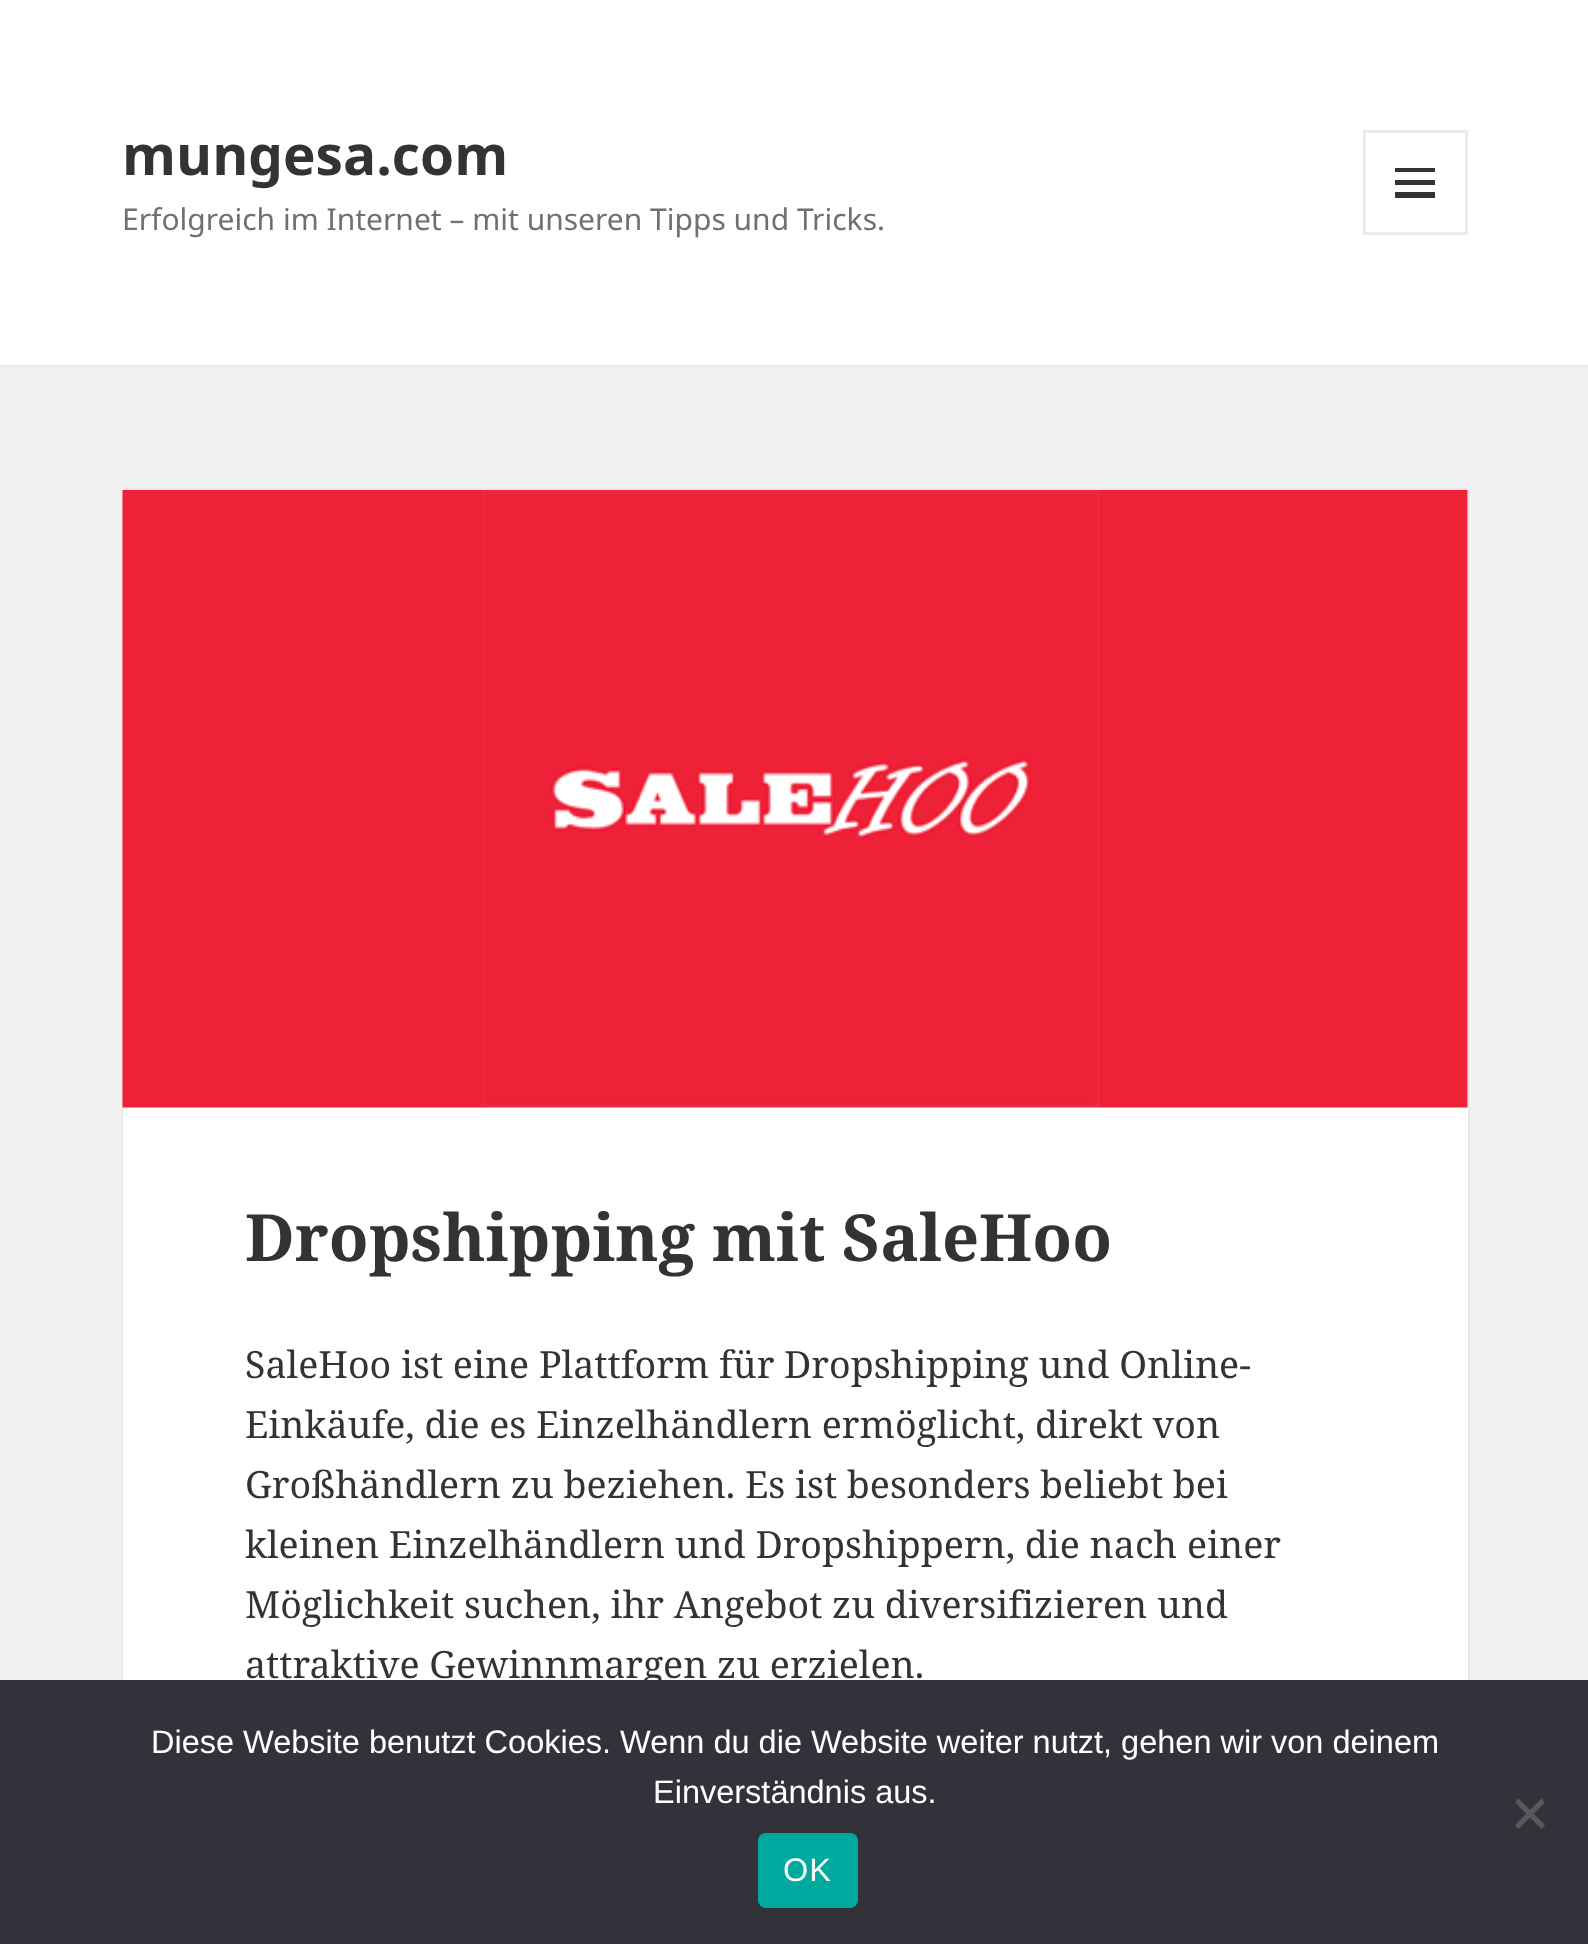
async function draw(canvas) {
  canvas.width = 1588
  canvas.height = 1944
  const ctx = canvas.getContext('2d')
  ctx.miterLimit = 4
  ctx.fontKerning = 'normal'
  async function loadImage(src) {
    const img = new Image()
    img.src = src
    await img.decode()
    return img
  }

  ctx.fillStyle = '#f1f1f1'
  ctx.fillRect(0, 0, 1588, 1944)
  ctx.fillStyle = '#fff'
  ctx.fillRect(0, 0, 1588, 365)
  ctx.fillStyle = '#ebebeb'
  ctx.fillRect(0, 365, 1588, 3)
  ctx.font = 'bold 55px Noto Sans'
  ctx.fillStyle = '#333'
  ctx.fillText('mungesa.com', 122, 175)
  ctx.strokeStyle = '#ebebeb'
  ctx.lineWidth = 3
  ctx.strokeRect(1364.5, 131.5, 102, 102)
  ctx.beginPath()
  ctx.moveTo(1395, 198)
  ctx.lineTo(1395, 192)
  ctx.lineTo(1435, 192)
  ctx.lineTo(1435, 198)
  ctx.closePath()
  ctx.moveTo(1395, 168)
  ctx.lineTo(1435, 168)
  ctx.lineTo(1435, 172)
  ctx.lineTo(1395, 172)
  ctx.closePath()
  ctx.moveTo(1395, 185)
  ctx.lineTo(1395, 180)
  ctx.lineTo(1435, 180)
  ctx.lineTo(1435, 185)
  ctx.closePath()
  ctx.fill()
  ctx.font = '30px Noto Sans'
  ctx.fillStyle = '#707070'
  ctx.fillText('Erfolgreich im Internet – mit unseren Tipps und Tricks.', 122, 230)
  ctx.fillStyle = '#00000026'
  ctx.filter = 'blur(1px)'
  ctx.beginPath()
  ctx.rect(123, 490, 1345, 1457)
  ctx.fill()
  ctx.filter = 'none'
  ctx.fillStyle = '#fff'
  ctx.fillRect(123, 490, 1345, 1190)
  ctx.drawImage(await loadImage('image0.png'), 122, 490, 1346, 618)
  ctx.font = 'bold 65px Noto Serif'
  ctx.fillStyle = '#333'
  ctx.fillText('Dropshipping mit SaleHoo', 245, 1261)
  ctx.font = '37.5px Noto Serif'
  ctx.fillText('SaleHoo ist eine Plattform für Dropshipping und Online-', 245, 1378)
  ctx.fillText('Einkäufe, die es Einzelhändlern ermöglicht, direkt von', 245, 1438)
  ctx.fillText('Großhändlern zu beziehen. Es ist besonders beliebt bei', 245, 1498)
  ctx.fillText('kleinen Einzelhändlern und Dropshippern, die nach einer', 245, 1558)
  ctx.fillText('Möglichkeit suchen, ihr Angebot zu diversifizieren und', 245, 1618)
  ctx.fillText('attraktive Gewinnmargen zu erzielen.', 245, 1678)
  ctx.fillStyle = '#32323a'
  ctx.fillRect(0, 1680, 1588, 264)
  ctx.font = '32.5px Liberation Sans'
  ctx.fillStyle = '#fff'
  ctx.fillText('Diese Website benutzt Cookies. Wenn du die Website weiter nutzt, gehen wir von deinem', 151, 1753)
  ctx.fillText('Einverständnis aus.', 653, 1803)
  ctx.fillStyle = '#59595d'
  ctx.beginPath()
  ctx.moveTo(1541.5, 1798.5)
  ctx.lineTo(1545, 1802.5)
  ctx.lineTo(1518.5, 1829)
  ctx.lineTo(1515, 1825)
  ctx.closePath()
  ctx.fill()
  ctx.beginPath()
  ctx.moveTo(1515, 1802.5)
  ctx.lineTo(1518.5, 1798.5)
  ctx.lineTo(1545, 1825)
  ctx.lineTo(1541.5, 1829)
  ctx.closePath()
  ctx.fill()
  ctx.fillStyle = '#00a99d'
  ctx.beginPath()
  ctx.roundRect(758, 1833, 100, 75, 8)
  ctx.fill()
  ctx.letterSpacing = '1px'
  ctx.fillStyle = '#fff'
  ctx.fillText('OK', 783, 1881)
}

draw(document.querySelector('canvas'))
